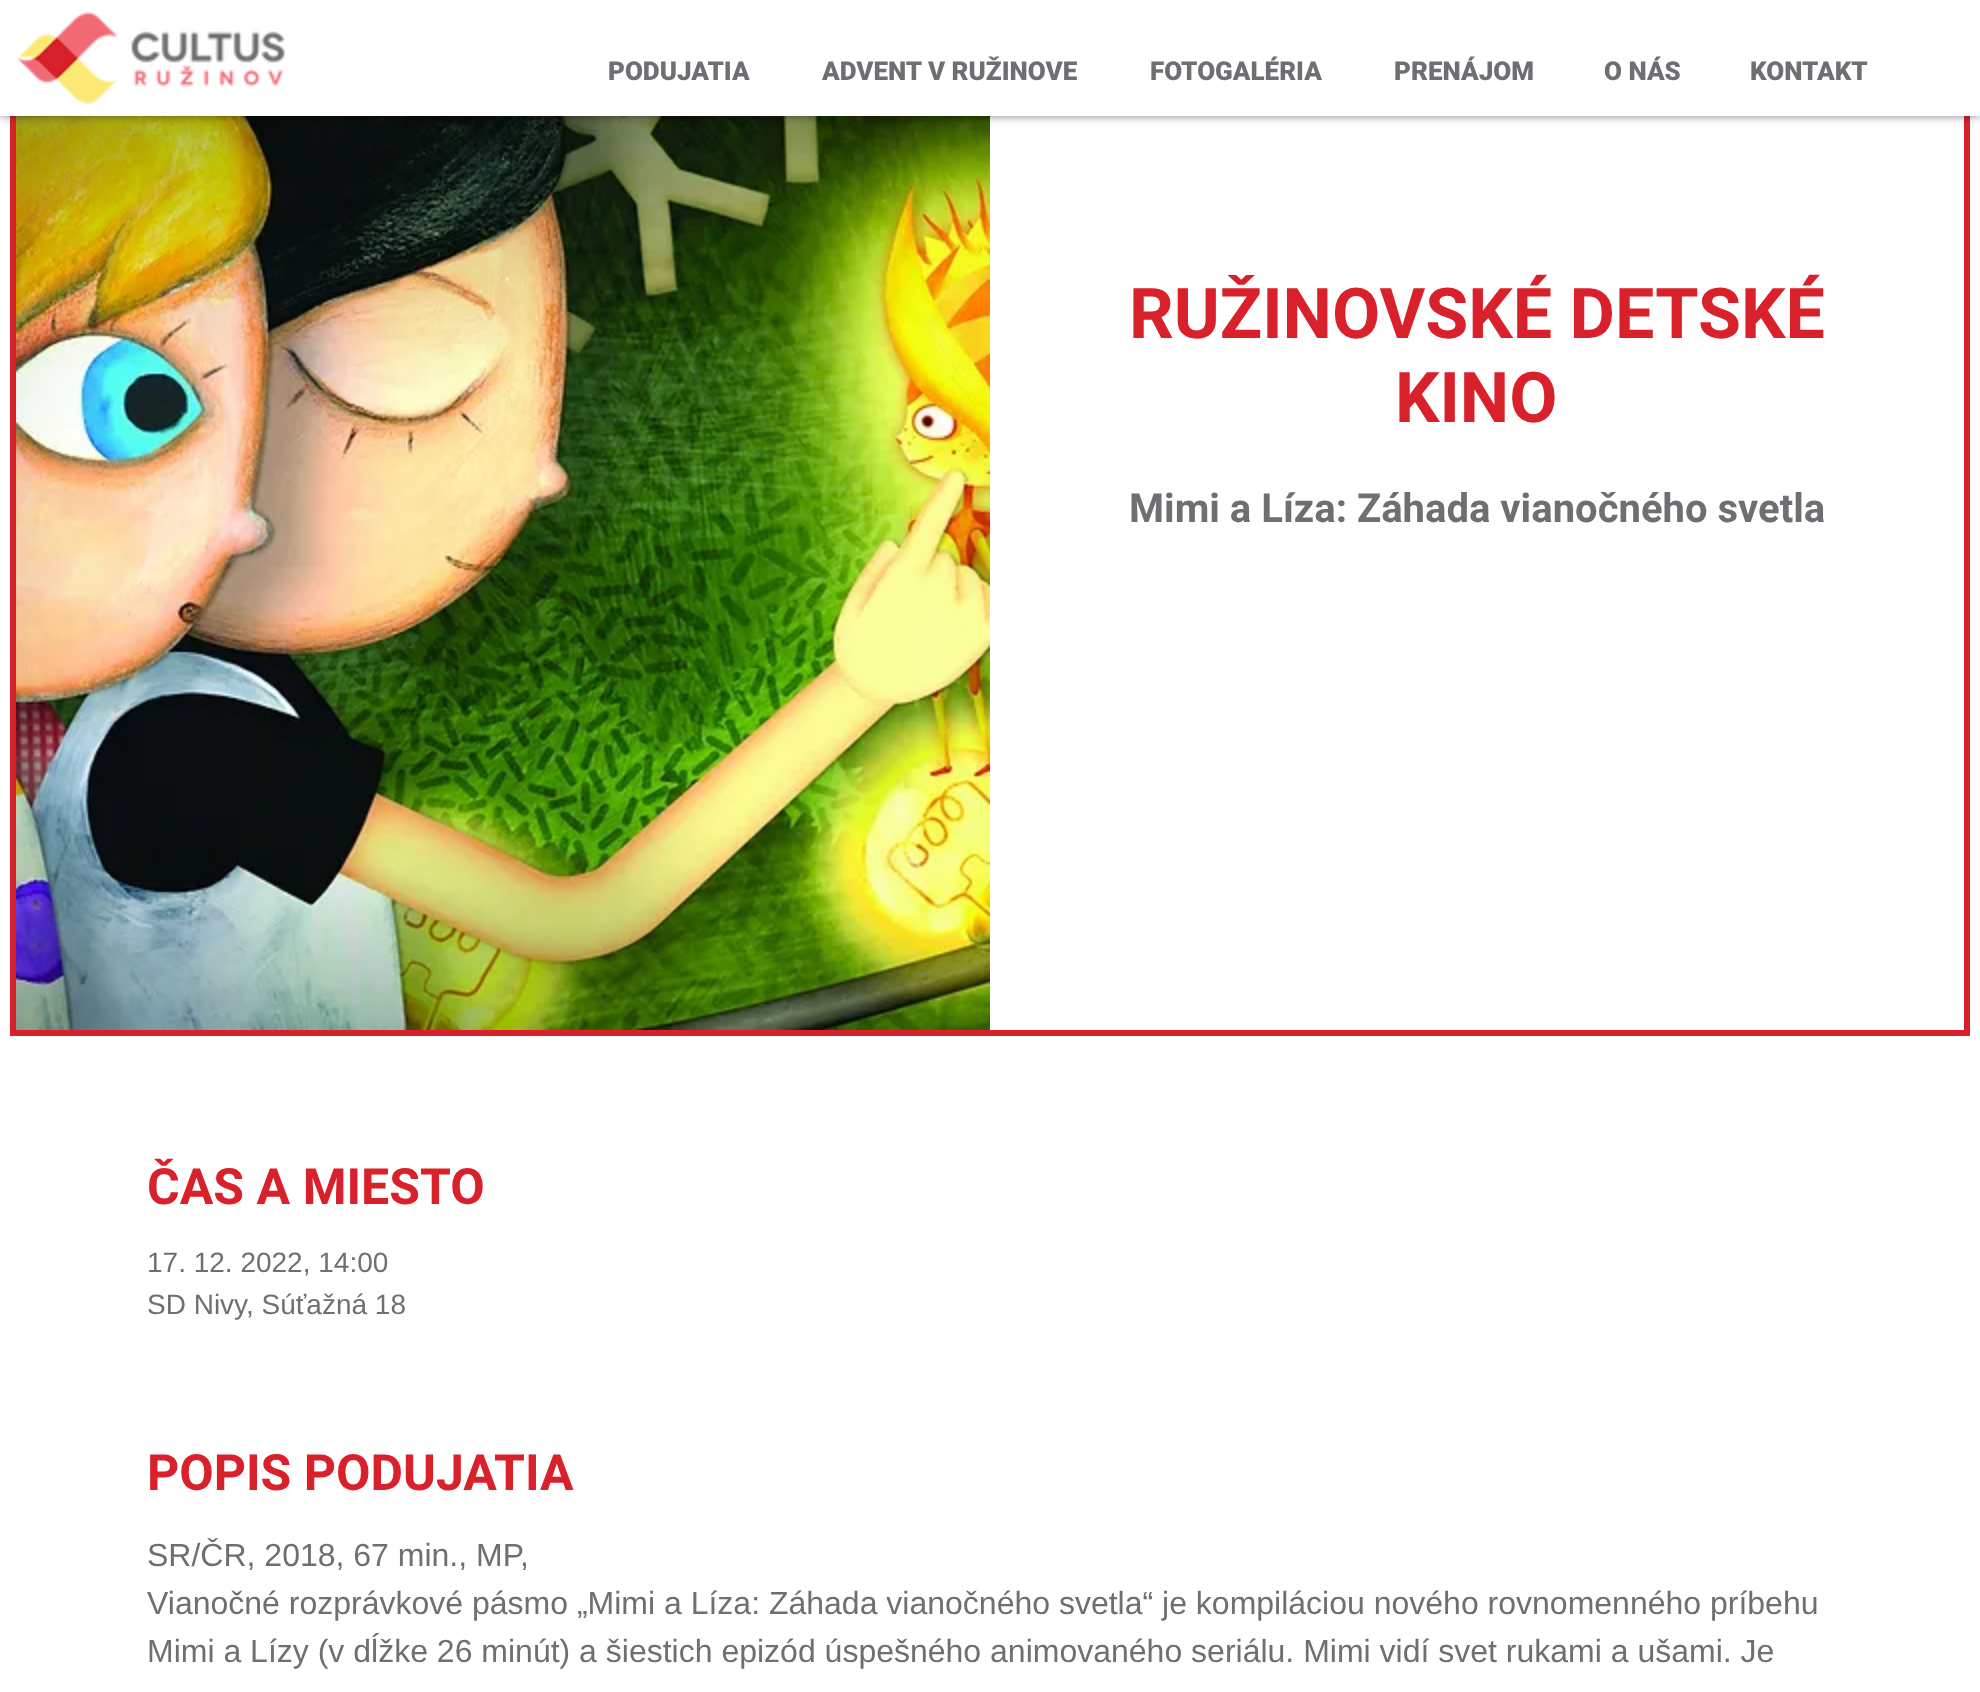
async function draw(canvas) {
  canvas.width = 1980
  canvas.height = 1692
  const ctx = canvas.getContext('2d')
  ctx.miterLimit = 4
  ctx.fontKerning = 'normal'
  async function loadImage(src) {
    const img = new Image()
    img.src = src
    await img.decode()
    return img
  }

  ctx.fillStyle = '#fff'
  ctx.fillRect(0, 0, 1980, 1692)
  ctx.strokeStyle = '#d9212b'
  ctx.lineWidth = 6
  ctx.strokeRect(13, 47, 1954, 986)
  ctx.drawImage(await loadImage('image1.png'), 16, 116, 974, 914)
  ctx.fillStyle = '#00000080'
  ctx.filter = 'blur(5px)'
  ctx.beginPath()
  ctx.rect(0, 0, 1980, 116)
  ctx.fill()
  ctx.filter = 'none'
  ctx.fillStyle = '#fff'
  ctx.fillRect(0, 0, 1980, 116)
  ctx.drawImage(await loadImage('image0.png'), 17, 11, 269, 94)
  ctx.font = '900 26px Roboto'
  ctx.fillStyle = '#6d6f72'
  ctx.fillText('PODUJATIA', 608, 80)
  ctx.fillText('ADVENT V RUŽINOVE', 822, 80)
  ctx.fillText('FOTOGALÉRIA', 1150, 80)
  ctx.fillText('PRENÁJOM', 1394, 80)
  ctx.fillText('O NÁS', 1604, 80)
  ctx.fillText('KONTAKT', 1750, 80)
  ctx.font = 'bold 70px Roboto'
  ctx.fillStyle = '#d9212b'
  ctx.fillText('RUŽINOVSKÉ DETSKÉ', 1129, 338)
  ctx.fillText('KINO', 1395, 422)
  ctx.font = 'bold 40px Roboto'
  ctx.fillStyle = '#6d6f72'
  ctx.fillText('Mimi a Líza: Záhada vianočného svetla', 1129, 522)
  ctx.font = 'bold 50px Roboto'
  ctx.fillStyle = '#d9212b'
  ctx.fillText('ČAS A MIESTO', 147, 1204)
  ctx.font = '28px Liberation Sans'
  ctx.fillStyle = '#6d6f72'
  ctx.fillText('17. 12. 2022, 14:00', 147, 1272)
  ctx.fillText('SD Nivy, Súťažná 18', 147, 1314)
  ctx.font = 'bold 50px Roboto'
  ctx.fillStyle = '#d9212b'
  ctx.fillText('POPIS PODUJATIA', 147, 1490)
  ctx.font = '32px Liberation Sans'
  ctx.fillStyle = '#6d6f72'
  ctx.fillText('SR/ČR, 2018, 67 min., MP,', 147, 1566)
  ctx.fillText('Vianočné rozprávkové pásmo „Mimi a Líza: Záhada vianočného svetla“ je kompiláciou nového rovnomenného príbehu', 147, 1614)
  ctx.fillText('Mimi a Lízy (v dĺžke 26 minút) a šiestich epizód úspešného animovaného seriálu. Mimi vidí svet rukami a ušami. Je', 147, 1662)
}

draw(document.querySelector('canvas'))
